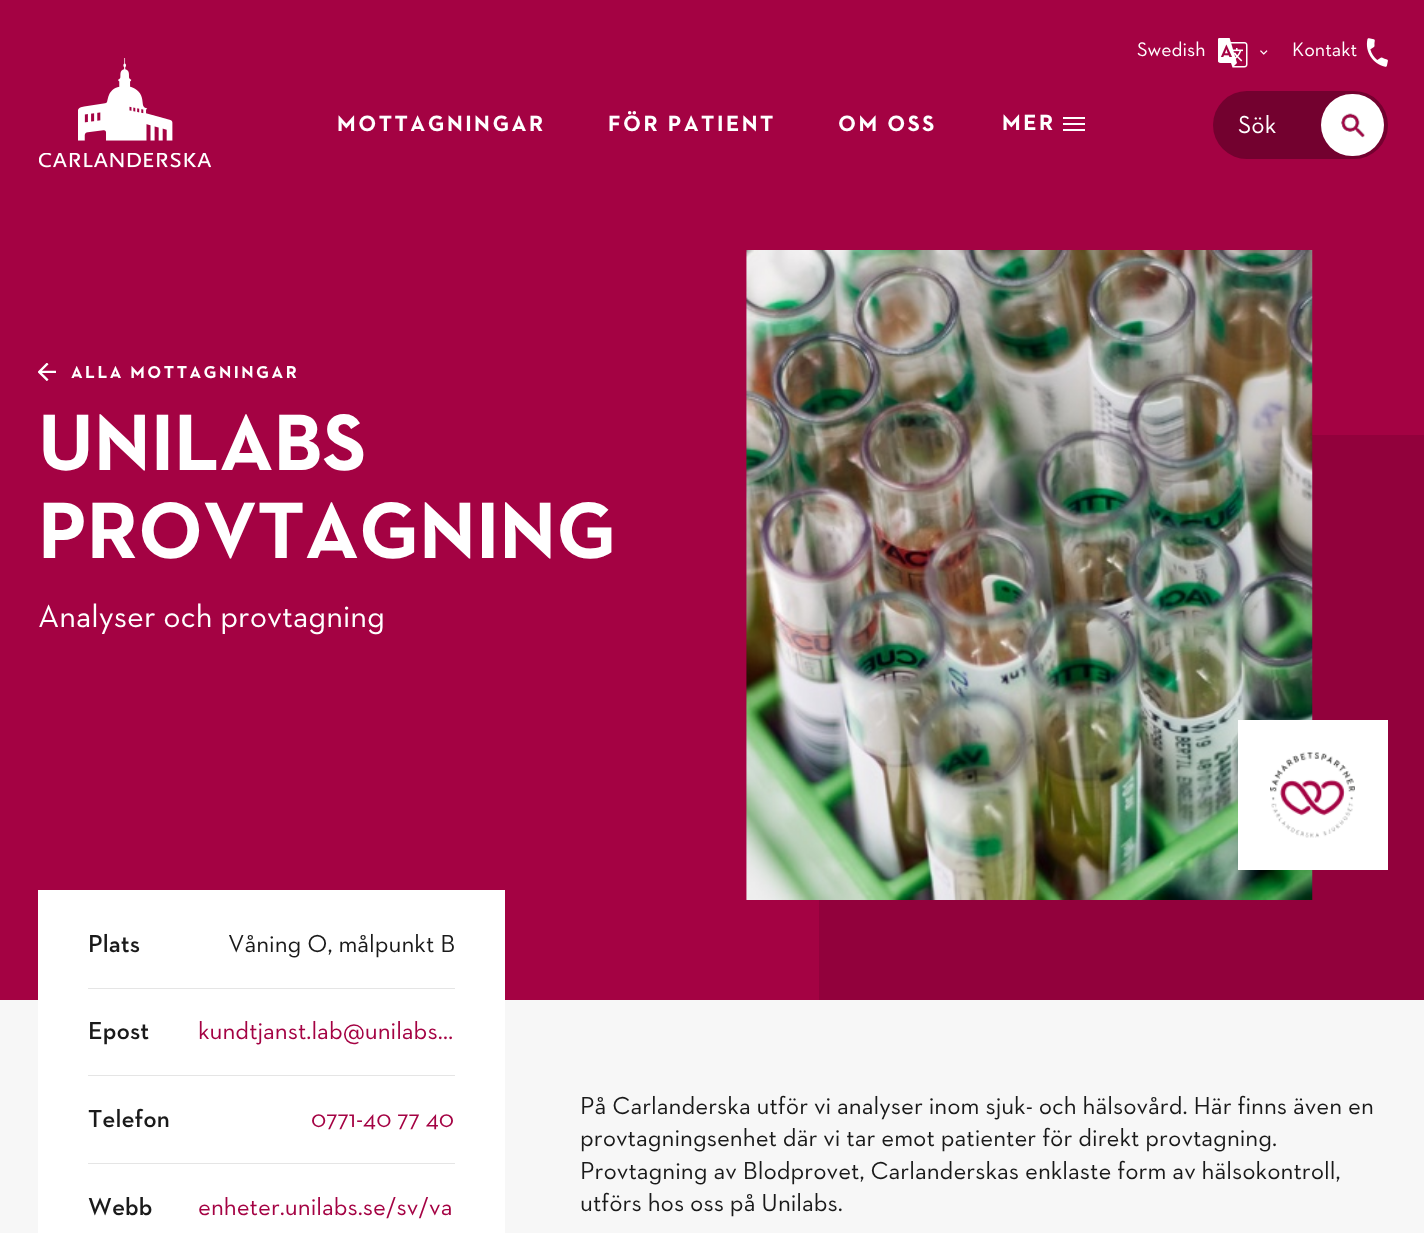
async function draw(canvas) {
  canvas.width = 1424
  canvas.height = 1233
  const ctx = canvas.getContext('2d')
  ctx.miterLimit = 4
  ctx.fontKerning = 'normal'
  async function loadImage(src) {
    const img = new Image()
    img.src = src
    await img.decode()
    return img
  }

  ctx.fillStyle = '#f7f7f7'
  ctx.fillRect(0, 0, 1424, 1233)
  ctx.fillStyle = '#a40243'
  ctx.fillRect(0, 0, 1424, 1000)
  ctx.font = '20px "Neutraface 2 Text"'
  ctx.fillStyle = '#fff'
  ctx.fillText('Swedish', 1137, 56)
  ctx.drawImage(await loadImage('image0.png'), 1260, 50, 8, 5)
  ctx.drawImage(await loadImage('image1.png'), 1218, 38, 30, 30)
  ctx.fillText('Kontakt', 1292, 56)
  ctx.drawImage(await loadImage('image2.png'), 1366, 38, 22, 29)
  ctx.drawImage(await loadImage('image3.png'), 78, 58, 95, 83)
  ctx.drawImage(await loadImage('image4.png'), 39, 153, 172, 15)
  ctx.letterSpacing = '2.5px'
  ctx.font = 'bold 22.5px "Neutraface 2 Text"'
  ctx.fillText('MOTTAGNINGAR', 337, 131)
  ctx.fillText('FÖR PATIENT', 608, 131)
  ctx.fillText('OM OSS', 838, 131)
  ctx.fillText('MER', 1002, 130)
  ctx.fillRect(1063, 129, 22, 2)
  ctx.fillRect(1063, 123, 22, 2)
  ctx.fillRect(1063, 117, 22, 2)
  ctx.fillStyle = '#73012f'
  ctx.beginPath()
  ctx.roundRect(1213, 91, 175, 68, 34)
  ctx.fill()
  ctx.letterSpacing = '0px'
  ctx.font = '25px "Neutraface 2 Text"'
  ctx.fillStyle = '#fff'
  ctx.fillText('Sök', 1238, 133)
  ctx.beginPath()
  ctx.roundRect(1321, 94, 63, 62, 31)
  ctx.fill()
  ctx.drawImage(await loadImage('image5.png'), 1341, 113, 24, 25)
  ctx.drawImage(await loadImage('image6.png'), 38, 363, 18, 18)
  ctx.letterSpacing = '2.5px'
  ctx.font = 'bold 17.5px "Neutraface 2 Text"'
  ctx.fillText('ALLA MOTTAGNINGAR', 71, 378)
  ctx.letterSpacing = '0px'
  ctx.font = 'bold 81.25px "Neutraface 2 Text"'
  ctx.fillText('UNILABS', 38, 470)
  ctx.fillText('PROVTAGNING', 38, 558)
  ctx.font = '32.5px "Neutraface 2 Text"'
  ctx.fillText('Analyser och provtagning', 38, 627)
  ctx.fillStyle = '#92013c'
  ctx.fillRect(819, 435, 605, 565)
  ctx.drawImage(await loadImage('image7.png'), 746, 250, 567, 650)
  ctx.fillStyle = '#fff'
  ctx.fillRect(1238, 720, 150, 150)
  ctx.drawImage(await loadImage('image8.png'), 1270, 752, 85, 86)
  ctx.fillRect(38, 890, 467, 343)
  ctx.fillStyle = '#e5e5e5'
  ctx.fillRect(88, 988, 367, 1)
  ctx.font = '600 25px "Neutraface 2 Text"'
  ctx.fillStyle = '#1a1a1a'
  ctx.fillText('Plats', 88, 952)
  ctx.font = '25px "Neutraface 2 Text"'
  ctx.fillText('Våning O, målpunkt B', 228, 952)
  ctx.fillStyle = '#e5e5e5'
  ctx.fillRect(88, 1075, 367, 1)
  ctx.font = '600 25px "Neutraface 2 Text"'
  ctx.fillStyle = '#1a1a1a'
  ctx.fillText('Epost', 88, 1039)
  ctx.font = '25px "Neutraface 2 Text"'
  ctx.fillStyle = '#a40243'
  ctx.fillText('kundtjanst.lab@unilabs…', 198, 1039)
  ctx.fillStyle = '#e5e5e5'
  ctx.fillRect(88, 1163, 367, 1)
  ctx.font = '600 25px "Neutraface 2 Text"'
  ctx.fillStyle = '#1a1a1a'
  ctx.fillText('Telefon', 88, 1127)
  ctx.font = '25px "Neutraface 2 Text"'
  ctx.fillStyle = '#a40243'
  ctx.fillText('0771-40 77 40', 311, 1127)
  ctx.font = '600 25px "Neutraface 2 Text"'
  ctx.fillStyle = '#1a1a1a'
  ctx.fillText('Webb', 88, 1215)
  ctx.font = '25px "Neutraface 2 Text"'
  ctx.fillStyle = '#a40243'
  ctx.fillText('enheter.unilabs.se/sv/va', 198, 1215)
  ctx.fillStyle = '#1a1a1a'
  ctx.fillText('På Carlanderska utför vi analyser inom sjuk- och hälsovård. Här finns även en', 580, 1114)
  ctx.fillText('provtagningsenhet där vi tar emot patienter för direkt provtagning.', 580, 1146)
  ctx.fillText('Provtagning av Blodprovet, Carlanderskas enklaste form av hälsokontroll,', 580, 1179)
  ctx.fillText('utförs hos oss på Unilabs.', 580, 1211)
}

draw(document.querySelector('canvas'))
